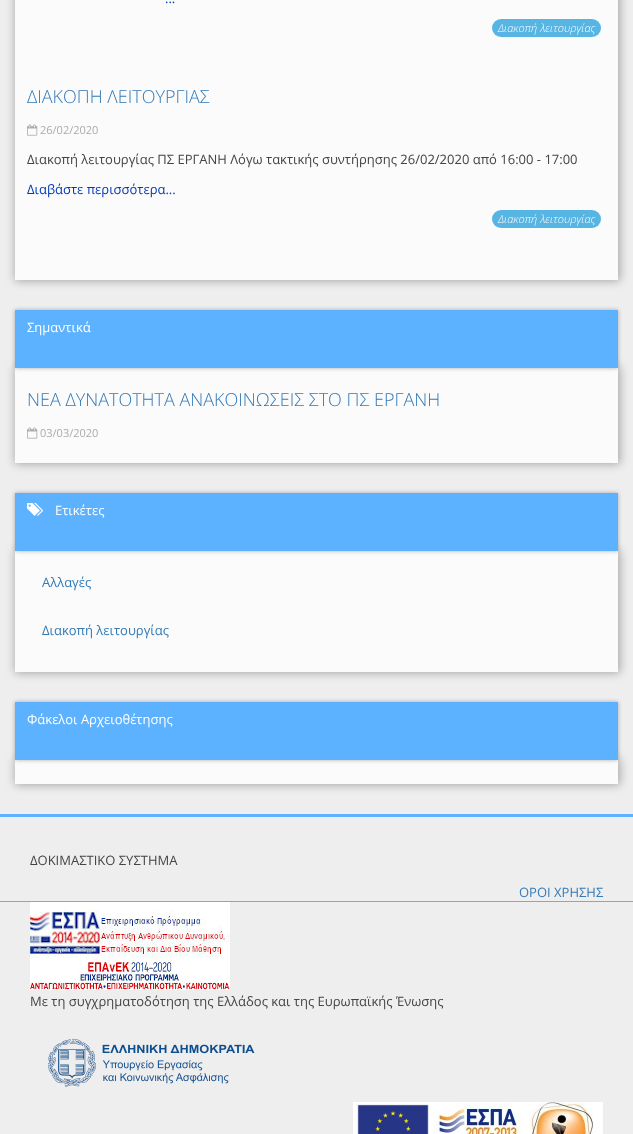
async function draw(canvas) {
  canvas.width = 633
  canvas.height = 1134
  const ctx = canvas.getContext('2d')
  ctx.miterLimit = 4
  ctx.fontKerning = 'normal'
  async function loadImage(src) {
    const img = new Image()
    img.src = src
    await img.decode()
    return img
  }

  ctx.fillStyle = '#eee'
  ctx.fillRect(0, 0, 633, 1134)
  ctx.fillStyle = '#0000004d'
  ctx.filter = 'blur(5px)'
  ctx.beginPath()
  ctx.rect(15, -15, 605, 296)
  ctx.fill()
  ctx.filter = 'none'
  ctx.fillStyle = '#fbfbfb'
  ctx.fillRect(15, 0, 603, 280)
  ctx.font = '13px Open Sans'
  ctx.fillStyle = '#023ab5'
  ctx.fillText('...', 165, 3)
  ctx.fillStyle = '#57b5e3'
  ctx.beginPath()
  ctx.roundRect(492, 19, 109, 18, 9)
  ctx.fill()
  ctx.font = 'italic 300 11px Open Sans'
  ctx.fillStyle = '#fff'
  ctx.fillText('Διακοπή λειτουργίας', 498, 32)
  ctx.font = '300 18px Open Sans'
  ctx.fillStyle = '#337ab7'
  ctx.fillText('ΔΙΑΚΟΠΗ ΛΕΙΤΟΥΡΓΙΑΣ', 27, 103)
  ctx.drawImage(await loadImage('image0.png'), 27, 124, 11, 12)
  ctx.font = '11px Open Sans'
  ctx.fillStyle = '#aaa'
  ctx.fillText('26/02/2020', 40, 134)
  ctx.font = '13px Open Sans'
  ctx.fillStyle = '#444'
  ctx.fillText('Διακοπή λειτουργίας ΠΣ ΕΡΓΑΝΗ Λόγω τακτικής συντήρησης 26/02/2020 από 16:00 - 17:00', 27, 164)
  ctx.fillStyle = '#023ab5'
  ctx.fillText('Διαβάστε περισσότερα...', 27, 194)
  ctx.fillStyle = '#57b5e3'
  ctx.beginPath()
  ctx.roundRect(492, 210, 109, 18, 9)
  ctx.fill()
  ctx.font = 'italic 300 11px Open Sans'
  ctx.fillStyle = '#fff'
  ctx.fillText('Διακοπή λειτουργίας', 498, 223)
  ctx.fillStyle = '#0000004d'
  ctx.filter = 'blur(5px)'
  ctx.beginPath()
  ctx.rect(15, 367, 605, 97)
  ctx.fill()
  ctx.filter = 'none'
  ctx.fillStyle = '#fbfbfb'
  ctx.fillRect(15, 368, 603, 95)
  ctx.fillStyle = '#0000004d'
  ctx.filter = 'blur(2px)'
  ctx.beginPath()
  ctx.rect(15, 310, 603, 58)
  ctx.fill()
  ctx.filter = 'none'
  ctx.fillStyle = '#5db2ff'
  ctx.fillRect(15, 310, 603, 58)
  ctx.font = '13px Open Sans'
  ctx.fillStyle = '#fff'
  ctx.fillText('Σημαντικά', 27, 332)
  ctx.font = '300 18px Open Sans'
  ctx.fillStyle = '#337ab7'
  ctx.fillText('ΝΕΑ ΔΥΝΑΤΟΤΗΤΑ ΑΝΑΚΟΙΝΩΣΕΙΣ ΣΤΟ ΠΣ ΕΡΓΑΝΗ', 27, 406)
  ctx.drawImage(await loadImage('image0.png'), 27, 427, 11, 12)
  ctx.font = '11px Open Sans'
  ctx.fillStyle = '#aaa'
  ctx.fillText('03/03/2020', 40, 437)
  ctx.fillStyle = '#0000004d'
  ctx.filter = 'blur(5px)'
  ctx.beginPath()
  ctx.rect(15, 550, 605, 123)
  ctx.fill()
  ctx.filter = 'none'
  ctx.fillStyle = '#fbfbfb'
  ctx.fillRect(15, 551, 603, 121)
  ctx.fillStyle = '#0000004d'
  ctx.filter = 'blur(2px)'
  ctx.beginPath()
  ctx.rect(15, 493, 603, 58)
  ctx.fill()
  ctx.filter = 'none'
  ctx.fillStyle = '#5db2ff'
  ctx.fillRect(15, 493, 603, 58)
  ctx.drawImage(await loadImage('image1.png'), 27, 503, 17, 13)
  ctx.font = '13px Open Sans'
  ctx.fillStyle = '#fff'
  ctx.fillText('Ετικέτες', 55, 515)
  ctx.fillStyle = '#337ab7'
  ctx.fillText('Αλλαγές', 42, 587)
  ctx.fillText('Διακοπή λειτουργίας', 42, 635)
  ctx.fillStyle = '#0000004d'
  ctx.filter = 'blur(5px)'
  ctx.beginPath()
  ctx.rect(15, 759, 605, 26)
  ctx.fill()
  ctx.filter = 'none'
  ctx.fillStyle = '#fbfbfb'
  ctx.fillRect(15, 760, 603, 24)
  ctx.fillStyle = '#0000004d'
  ctx.filter = 'blur(2px)'
  ctx.beginPath()
  ctx.rect(15, 702, 603, 58)
  ctx.fill()
  ctx.filter = 'none'
  ctx.fillStyle = '#5db2ff'
  ctx.fillRect(15, 702, 603, 58)
  ctx.fillStyle = '#fff'
  ctx.fillText('Φάκελοι Αρχειοθέτησης', 27, 724)
  ctx.fillStyle = '#5db2ff'
  ctx.fillRect(0, 814, 633, 3)
  ctx.fillRect(0, 901, 633, 1)
  ctx.fillStyle = '#444'
  ctx.fillText('ΔΟΚΙΜΑΣΤΙΚΟ ΣΥΣΤΗΜΑ', 30, 865)
  ctx.fillStyle = '#337ab7'
  ctx.fillText('ΟΡΟΙ ΧΡΗΣΗΣ', 519, 897)
  ctx.drawImage(await loadImage('image2.png'), 30, 902, 200, 88)
  ctx.fillStyle = '#444'
  ctx.fillText('Με τη συγχρηματοδότηση της Ελλάδος και της Ευρωπαϊκής Ένωσης', 30, 1006)
  ctx.drawImage(await loadImage('image3.png'), 48, 1038, 207, 49)
  ctx.drawImage(await loadImage('image4.png'), 353, 1102, 80, 32)
  ctx.drawImage(await loadImage('image5.png'), 433, 1102, 170, 32)
}

draw(document.querySelector('canvas'))
